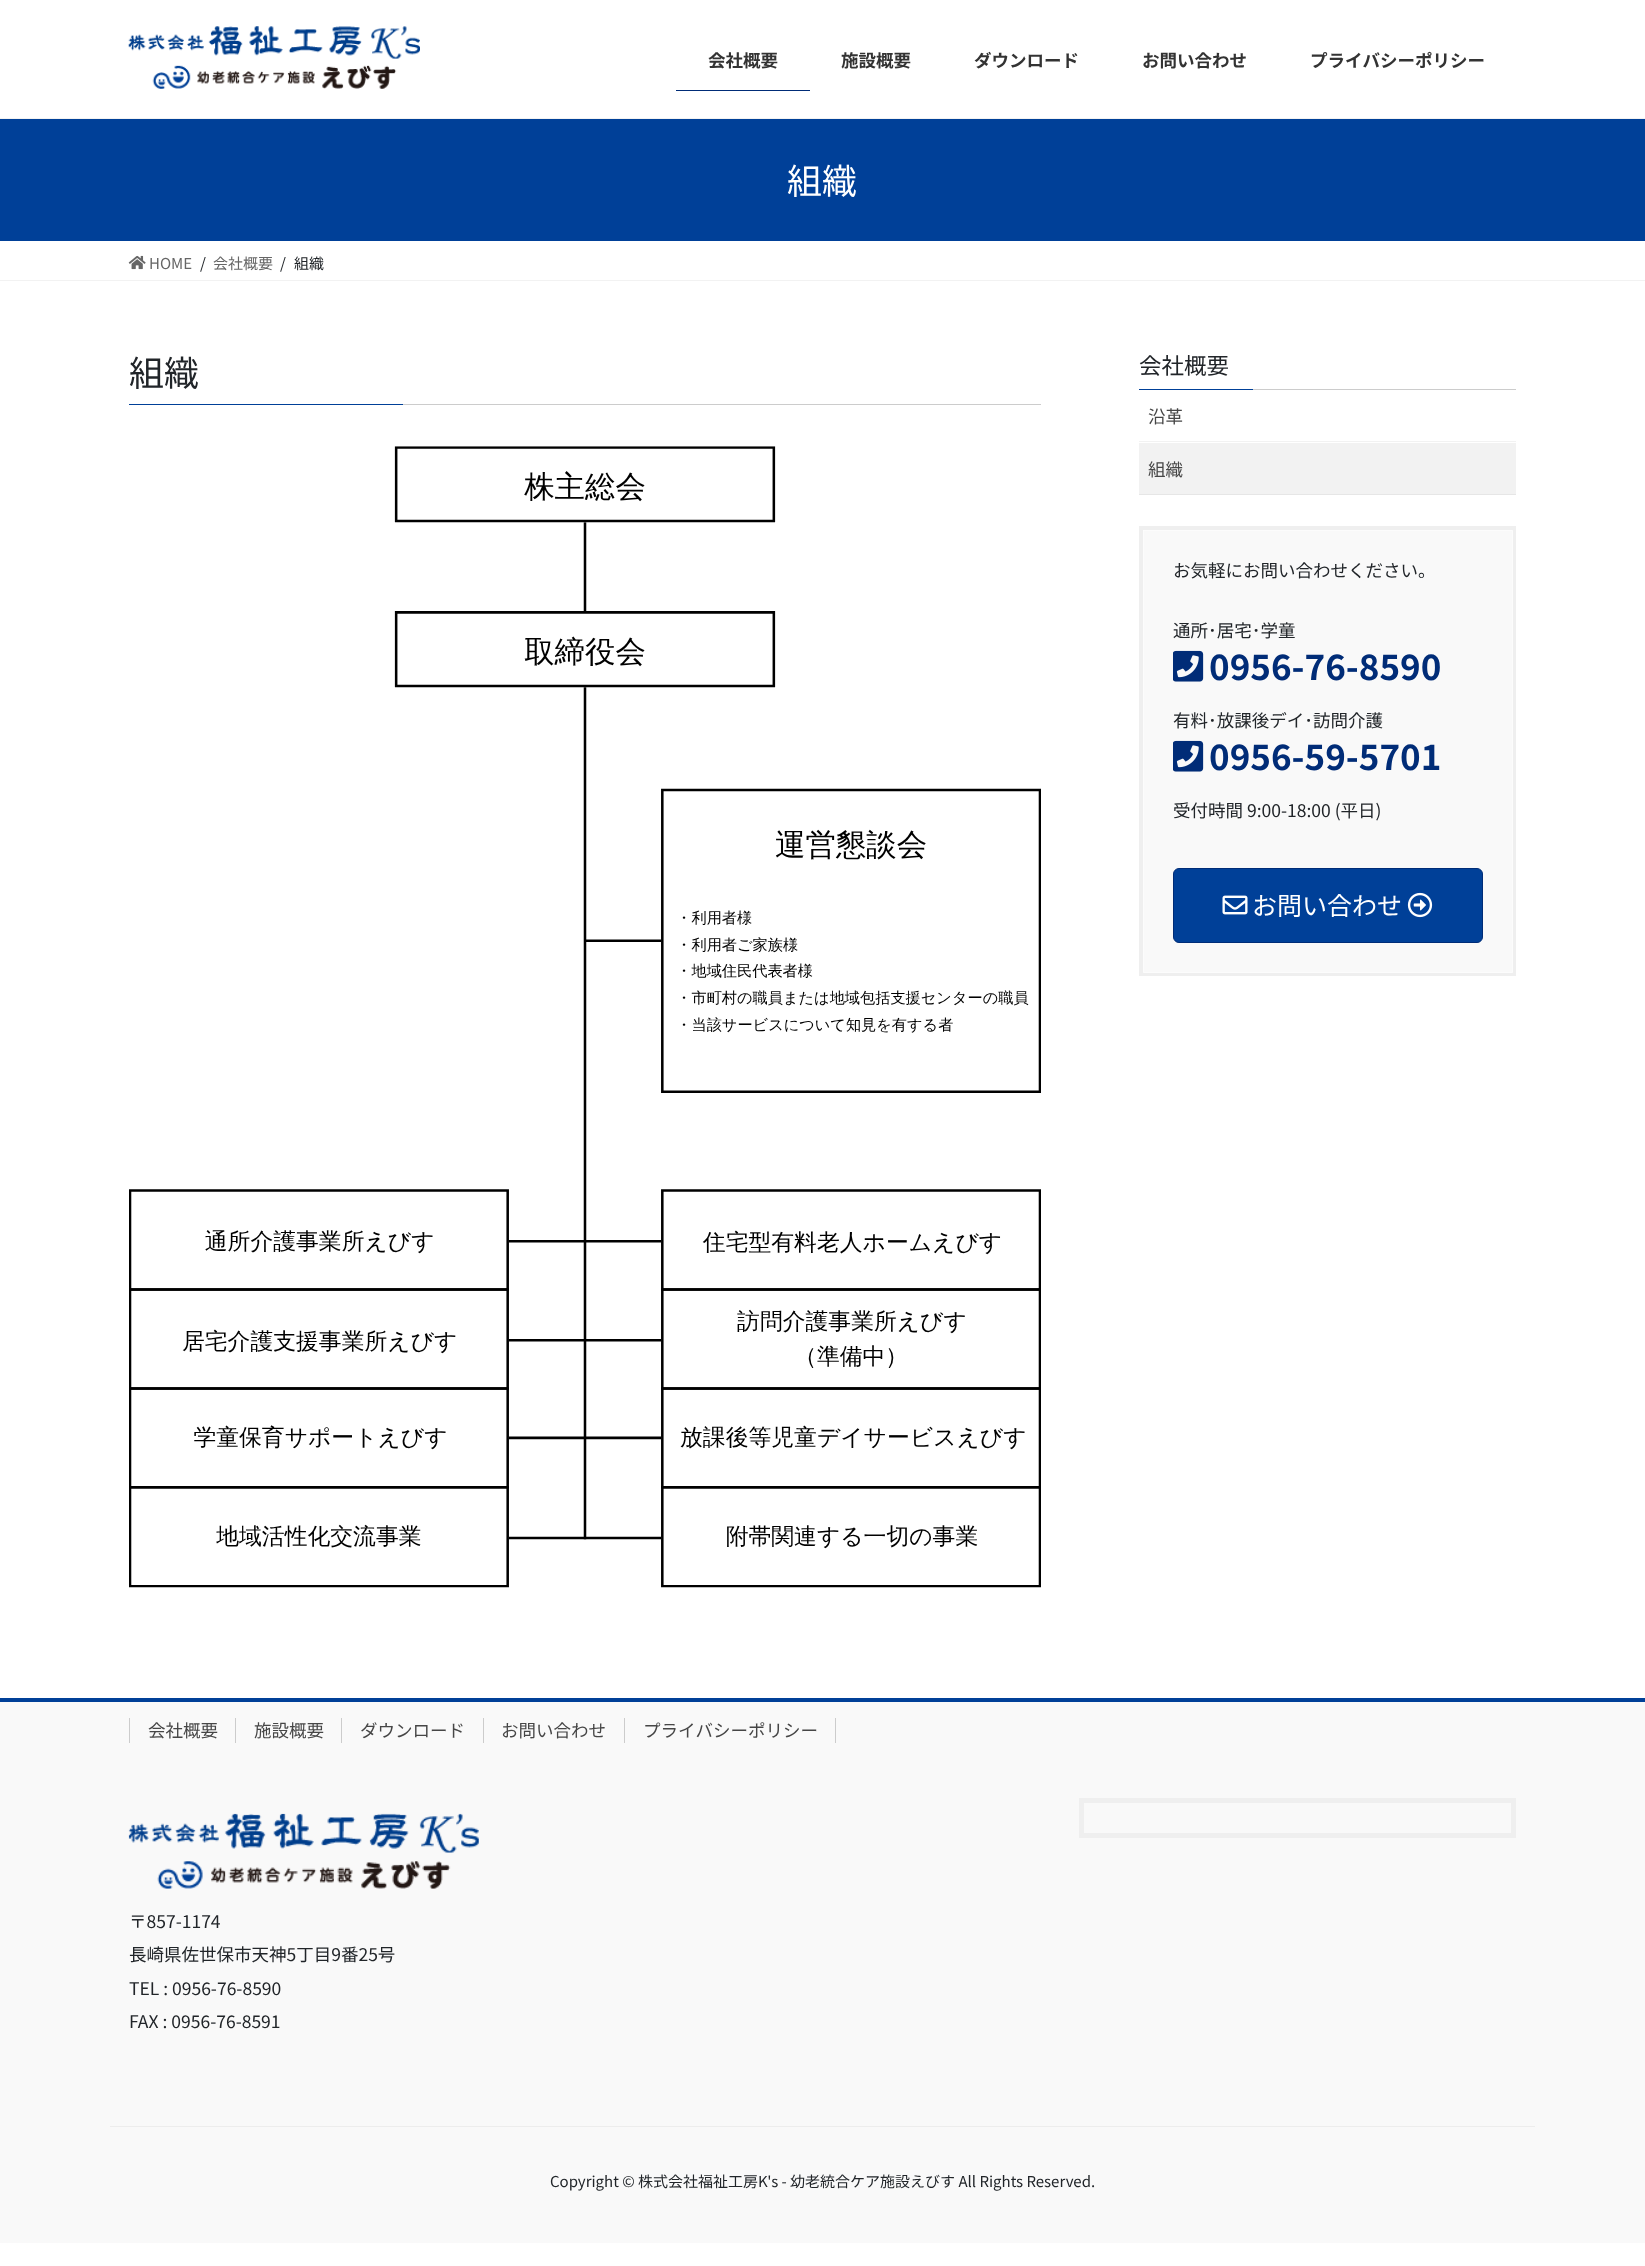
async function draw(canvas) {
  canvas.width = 1645
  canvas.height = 2266
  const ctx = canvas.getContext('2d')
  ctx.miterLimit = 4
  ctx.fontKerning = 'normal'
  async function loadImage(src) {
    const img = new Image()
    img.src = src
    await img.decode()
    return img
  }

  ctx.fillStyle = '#fff'
  ctx.fillRect(0, 0, 1645, 2266)
  ctx.fillStyle = '#f2f2f2'
  ctx.fillRect(0, 118, 1645, 1)
  ctx.drawImage(await loadImage('image0.png'), 128, 26, 292, 63)
  ctx.font = 'bold 17.5px Noto Sans JP'
  ctx.fillStyle = '#333'
  ctx.fillText('会社概要', 708, 67)
  ctx.fillStyle = '#002c77'
  ctx.fillRect(676, 90, 134, 1)
  ctx.fillStyle = '#333'
  ctx.fillText('施設概要', 841, 67)
  ctx.fillText('ダウンロード', 974, 67)
  ctx.fillText('お問い合わせ', 1142, 67)
  ctx.fillText('プライバシーポリシー', 1310, 67)
  ctx.fillStyle = '#004098'
  ctx.fillRect(0, 119, 1645, 122)
  ctx.font = '35px Noto Sans JP'
  ctx.fillStyle = '#fff'
  ctx.fillText('組織', 787, 194)
  ctx.fillStyle = '#f2f2f2'
  ctx.fillRect(0, 280, 1645, 1)
  ctx.drawImage(await loadImage('image1.png'), 128, 255, 18, 15)
  ctx.font = '15px Noto Sans JP'
  ctx.fillStyle = '#666'
  ctx.fillText('HOME', 149, 269)
  ctx.fillStyle = '#212529'
  ctx.fillText('/', 200, 269)
  ctx.fillStyle = '#666'
  ctx.fillText('会社概要', 213, 269)
  ctx.fillStyle = '#212529'
  ctx.fillText('/', 280, 269)
  ctx.fillText('組織', 294, 269)
  ctx.fillStyle = '#ccc'
  ctx.fillRect(403, 404, 638, 1)
  ctx.font = '35px Noto Sans JP'
  ctx.fillStyle = '#212529'
  ctx.fillText('組織', 129, 386)
  ctx.fillStyle = '#004098'
  ctx.fillRect(129, 404, 274, 1)
  ctx.drawImage(await loadImage('image2.png'), 129, 446, 912, 1142)
  ctx.fillStyle = '#ccc'
  ctx.fillRect(1253, 389, 263, 1)
  ctx.font = '22.5px Noto Sans JP'
  ctx.fillStyle = '#212529'
  ctx.fillText('会社概要', 1139, 374)
  ctx.fillStyle = '#004098'
  ctx.fillRect(1139, 389, 114, 1)
  ctx.fillStyle = '#f2f2f2'
  ctx.fillRect(1139, 441, 377, 1)
  ctx.font = '17.5px Noto Sans JP'
  ctx.fillStyle = '#464646'
  ctx.fillText('沿革', 1148, 423)
  ctx.fillStyle = '#f2f2f2'
  ctx.fillRect(1139, 443, 377, 51)
  ctx.fillStyle = '#e6e6e6'
  ctx.fillRect(1139, 494, 377, 1)
  ctx.fillStyle = '#464646'
  ctx.fillText('組織', 1148, 476)
  ctx.strokeStyle = '#efefef'
  ctx.lineWidth = 4
  ctx.strokeRect(1141, 528, 373, 446)
  ctx.fillStyle = '#f9f9f9'
  ctx.beginPath()
  ctx.rect(1143.5, 530.5, 369, 442)
  ctx.fill()
  ctx.strokeStyle = '#fcfcfc'
  ctx.lineWidth = 1
  ctx.stroke()
  ctx.fillStyle = '#212529'
  ctx.fillText('お気軽にお問い合わせください。', 1173, 577)
  ctx.fillText('通所･居宅･学童', 1173, 637)
  ctx.drawImage(await loadImage('image3.png'), 1173, 650, 31, 32)
  ctx.font = 'bold 35px Noto Sans JP'
  ctx.fillStyle = '#002c77'
  ctx.fillText('0956-76-8590', 1209, 680)
  ctx.font = '17.5px Noto Sans JP'
  ctx.fillStyle = '#212529'
  ctx.fillText('有料･放課後デイ･訪問介護', 1173, 727)
  ctx.drawImage(await loadImage('image3.png'), 1173, 740, 31, 32)
  ctx.font = 'bold 35px Noto Sans JP'
  ctx.fillStyle = '#002c77'
  ctx.fillText('0956-59-5701', 1209, 770)
  ctx.font = '17.5px Noto Sans JP'
  ctx.fillStyle = '#212529'
  ctx.fillText('受付時間 9:00-18:00 (平日)', 1173, 817)
  ctx.fillStyle = '#004098'
  ctx.beginPath()
  ctx.roundRect(1173.5, 868.5, 309, 74, 5.5)
  ctx.fill()
  ctx.strokeStyle = '#002c77'
  ctx.stroke()
  ctx.drawImage(await loadImage('image4.png'), 1222, 895, 26, 20)
  ctx.font = '25px Noto Sans JP'
  ctx.fillStyle = '#fff'
  ctx.fillText('お問い合わせ', 1252, 915)
  ctx.drawImage(await loadImage('image5.png'), 1407, 892, 26, 26)
  ctx.fillStyle = '#f9f9f9'
  ctx.fillRect(0, 1702, 1645, 541)
  ctx.fillStyle = '#004098'
  ctx.fillRect(0, 1698, 1645, 4)
  ctx.font = '17.5px Noto Sans JP'
  ctx.fillStyle = '#464646'
  ctx.fillText('会社概要', 148, 1737)
  ctx.fillStyle = '#ccc'
  ctx.fillRect(129, 1718, 1, 25)
  ctx.fillStyle = '#464646'
  ctx.fillText('施設概要', 254, 1737)
  ctx.fillStyle = '#ccc'
  ctx.fillRect(235, 1718, 1, 25)
  ctx.fillStyle = '#464646'
  ctx.fillText('ダウンロード', 360, 1737)
  ctx.fillStyle = '#ccc'
  ctx.fillRect(341, 1718, 1, 25)
  ctx.fillStyle = '#464646'
  ctx.fillText('お問い合わせ', 501, 1737)
  ctx.fillStyle = '#ccc'
  ctx.fillRect(483, 1718, 1, 25)
  ctx.fillStyle = '#464646'
  ctx.fillText('プライバシーポリシー', 643, 1737)
  ctx.fillStyle = '#ccc'
  ctx.fillRect(835, 1718, 1, 25)
  ctx.fillRect(624, 1718, 1, 25)
  ctx.strokeStyle = '#efefef'
  ctx.lineWidth = 5
  ctx.strokeRect(1081.5, 1800.5, 432, 35)
  ctx.drawImage(await loadImage('image6.png'), 128, 1813, 351, 76)
  ctx.fillStyle = '#212529'
  ctx.fillText('〒857-1174', 129, 1928)
  ctx.fillText('長崎県佐世保市天神5丁目9番25号', 129, 1961)
  ctx.fillText('TEL : 0956-76-8590', 129, 1995)
  ctx.fillText('FAX : 0956-76-8591', 129, 2028)
  ctx.fillStyle = '#ededed'
  ctx.fillRect(110, 2126, 1425, 1)
  ctx.font = '15px Noto Sans JP'
  ctx.fillStyle = '#212529'
  ctx.fillText('Copyright © 株式会社福祉工房K\'s - 幼老統合ケア施設えびす All Rights Reserved.', 550, 2187)
}

draw(document.querySelector('canvas'))
